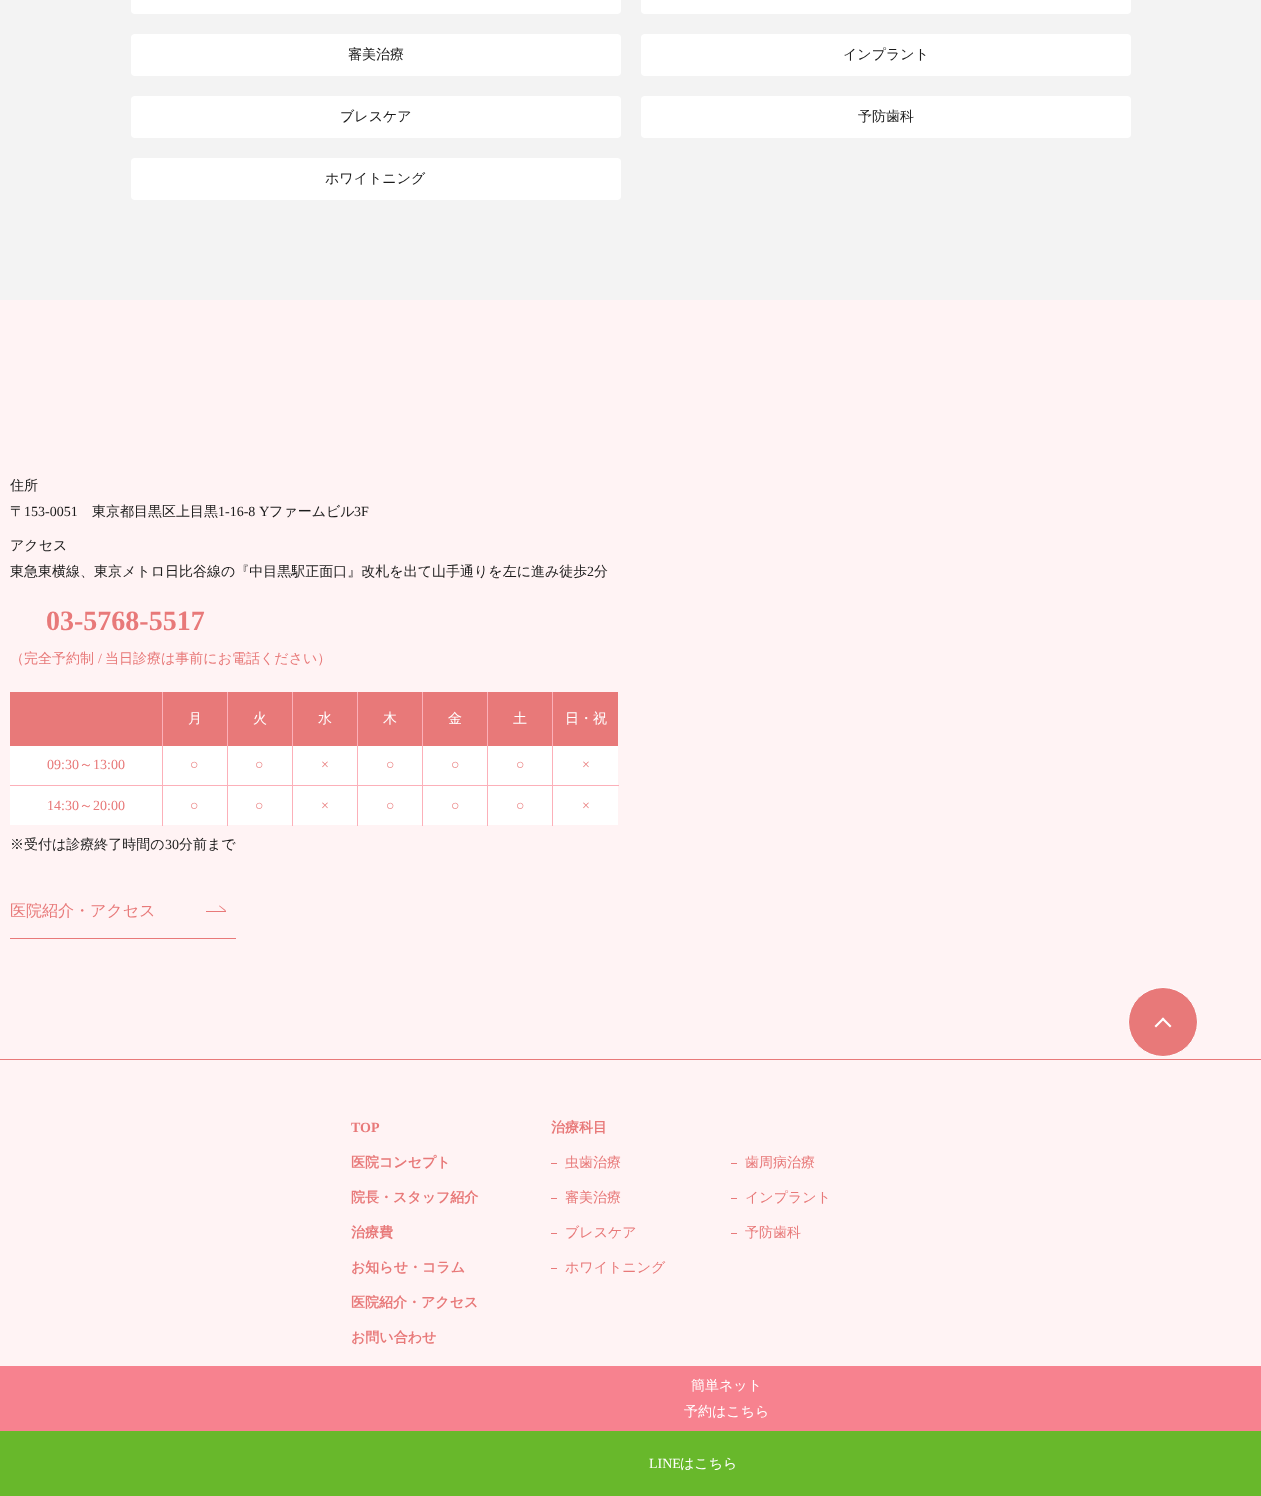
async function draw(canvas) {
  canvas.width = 1261
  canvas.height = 1496
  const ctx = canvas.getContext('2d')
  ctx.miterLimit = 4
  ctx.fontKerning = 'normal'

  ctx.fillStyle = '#f3f3f3'
  ctx.fillRect(0, 0, 1261, 1496)
  ctx.fillStyle = '#fff'
  ctx.beginPath()
  ctx.roundRect(131, -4, 490, 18, 4)
  ctx.fill()
  ctx.beginPath()
  ctx.roundRect(641, -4, 490, 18, 4)
  ctx.fill()
  ctx.beginPath()
  ctx.roundRect(131, 34, 490, 42, 4)
  ctx.fill()
  ctx.font = '500 14px WenQuanYi Zen Hei'
  ctx.fillStyle = '#1b1b1b'
  ctx.fillText('審美治療', 348, 59)
  ctx.fillStyle = '#fff'
  ctx.beginPath()
  ctx.roundRect(641, 34, 490, 42, 4)
  ctx.fill()
  ctx.fillStyle = '#1b1b1b'
  ctx.fillText('インプラント', 843, 59)
  ctx.fillStyle = '#fff'
  ctx.beginPath()
  ctx.roundRect(131, 96, 490, 42, 4)
  ctx.fill()
  ctx.fillStyle = '#1b1b1b'
  ctx.fillText('ブレスケア', 340, 121)
  ctx.fillStyle = '#fff'
  ctx.beginPath()
  ctx.roundRect(641, 96, 490, 42, 4)
  ctx.fill()
  ctx.fillStyle = '#1b1b1b'
  ctx.fillText('予防歯科', 858, 121)
  ctx.fillStyle = '#fff'
  ctx.beginPath()
  ctx.roundRect(131, 158, 490, 42, 4)
  ctx.fill()
  ctx.fillStyle = '#1b1b1b'
  ctx.fillText('ホワイトニング', 325, 183)
  ctx.fillStyle = '#fff3f4'
  ctx.fillRect(0, 300, 1261, 759)
  ctx.fillStyle = '#1b1b1b'
  ctx.fillText('住所', 10, 490)
  ctx.fillText('〒', 10, 516)
  ctx.font = '14px Liberation Serif'
  ctx.fillText('153-0051', 24, 516)
  ctx.font = '500 14px WenQuanYi Zen Hei'
  ctx.fillText('東京都目黒区上目黒', 92, 516)
  ctx.wordSpacing = '1px'
  ctx.font = '14px Liberation Serif'
  ctx.fillText('1-16-8 Y', 218, 516)
  ctx.wordSpacing = '0px'
  ctx.font = '500 14px WenQuanYi Zen Hei'
  ctx.fillText('ファームビル', 269, 516)
  ctx.font = '14px Liberation Serif'
  ctx.fillText('3F', 354, 516)
  ctx.font = '500 14px WenQuanYi Zen Hei'
  ctx.fillText('アクセス', 10, 550)
  ctx.fillText('東急東横線、東京メトロ日比谷線の『中目黒駅正面口』改札を出て山手通りを左に進み徒歩', 10, 576)
  ctx.font = '14px Liberation Serif'
  ctx.fillText('2', 587, 576)
  ctx.font = '500 14px WenQuanYi Zen Hei'
  ctx.fillText('分', 594, 576)
  ctx.font = 'bold 28px Liberation Serif'
  ctx.fillStyle = '#e87979'
  ctx.fillText('03-5768-5517', 46, 630)
  ctx.font = '500 14px WenQuanYi Zen Hei'
  ctx.fillText('（完全予約制', 10, 663)
  ctx.font = '14px Liberation Serif'
  ctx.fillText('/', 98, 663)
  ctx.font = '500 14px WenQuanYi Zen Hei'
  ctx.fillText('当日診療は事前にお電話ください）', 105, 663)
  ctx.fillRect(10, 692, 152, 54)
  ctx.fillRect(163, 692, 64, 54)
  ctx.fillStyle = '#fff'
  ctx.fillText('月', 188, 723)
  ctx.fillStyle = '#e87979'
  ctx.fillRect(228, 692, 64, 54)
  ctx.fillStyle = '#fff'
  ctx.fillText('火', 253, 723)
  ctx.fillStyle = '#e87979'
  ctx.fillRect(293, 692, 64, 54)
  ctx.fillStyle = '#fff'
  ctx.fillText('水', 318, 723)
  ctx.fillStyle = '#e87979'
  ctx.fillRect(358, 692, 64, 54)
  ctx.fillStyle = '#fff'
  ctx.fillText('木', 383, 723)
  ctx.fillStyle = '#e87979'
  ctx.fillRect(423, 692, 64, 54)
  ctx.fillStyle = '#fff'
  ctx.fillText('金', 448, 723)
  ctx.fillStyle = '#e87979'
  ctx.fillRect(488, 692, 64, 54)
  ctx.fillStyle = '#fff'
  ctx.fillText('土', 513, 723)
  ctx.fillStyle = '#e87979'
  ctx.fillRect(553, 692, 65, 54)
  ctx.fillStyle = '#fff'
  ctx.fillText('日・祝', 565, 723)
  ctx.fillRect(10, 746, 152, 39)
  ctx.fillStyle = '#fcb0b9'
  ctx.fillRect(552, 785, 1, 41)
  ctx.fillRect(552, 785, 67, 1)
  ctx.fillRect(552, 692, 1, 94)
  ctx.fillRect(487, 785, 1, 41)
  ctx.fillRect(487, 785, 66, 1)
  ctx.fillRect(487, 692, 1, 94)
  ctx.fillRect(422, 785, 1, 41)
  ctx.fillRect(422, 785, 66, 1)
  ctx.fillRect(422, 692, 1, 94)
  ctx.fillRect(357, 785, 1, 41)
  ctx.fillRect(357, 785, 66, 1)
  ctx.fillRect(357, 692, 1, 94)
  ctx.fillRect(292, 785, 1, 41)
  ctx.fillRect(292, 785, 66, 1)
  ctx.fillRect(292, 692, 1, 94)
  ctx.fillRect(227, 785, 1, 41)
  ctx.fillRect(227, 785, 66, 1)
  ctx.fillRect(227, 692, 1, 94)
  ctx.fillRect(162, 785, 1, 41)
  ctx.fillRect(162, 785, 66, 1)
  ctx.fillRect(162, 692, 1, 94)
  ctx.fillRect(10, 785, 153, 1)
  ctx.font = '14px Liberation Serif'
  ctx.fillStyle = '#e87979'
  ctx.fillText('09:30', 47, 769)
  ctx.font = '500 14px WenQuanYi Zen Hei'
  ctx.fillText('～', 79, 769)
  ctx.font = '14px Liberation Serif'
  ctx.fillText('13:00', 93, 769)
  ctx.fillStyle = '#fff'
  ctx.fillRect(163, 746, 64, 39)
  ctx.fillStyle = '#e87979'
  ctx.fillText('○', 190, 769)
  ctx.fillStyle = '#fff'
  ctx.fillRect(228, 746, 64, 39)
  ctx.fillStyle = '#e87979'
  ctx.fillText('○', 255, 769)
  ctx.fillStyle = '#fff'
  ctx.fillRect(293, 746, 64, 39)
  ctx.fillStyle = '#e87979'
  ctx.fillText('×', 321, 769)
  ctx.fillStyle = '#fff'
  ctx.fillRect(358, 746, 64, 39)
  ctx.fillStyle = '#e87979'
  ctx.fillText('○', 386, 769)
  ctx.fillStyle = '#fff'
  ctx.fillRect(423, 746, 64, 39)
  ctx.fillStyle = '#e87979'
  ctx.fillText('○', 451, 769)
  ctx.fillStyle = '#fff'
  ctx.fillRect(488, 746, 64, 39)
  ctx.fillStyle = '#e87979'
  ctx.fillText('○', 516, 769)
  ctx.fillStyle = '#fff'
  ctx.fillRect(553, 746, 65, 39)
  ctx.fillStyle = '#e87979'
  ctx.fillText('×', 582, 769)
  ctx.fillStyle = '#fff'
  ctx.fillRect(10, 786, 152, 39)
  ctx.fillStyle = '#e87979'
  ctx.fillText('14:30', 47, 810)
  ctx.font = '500 14px WenQuanYi Zen Hei'
  ctx.fillText('～', 79, 810)
  ctx.font = '14px Liberation Serif'
  ctx.fillText('20:00', 93, 810)
  ctx.fillStyle = '#fff'
  ctx.fillRect(163, 786, 64, 39)
  ctx.fillStyle = '#e87979'
  ctx.fillText('○', 190, 810)
  ctx.fillStyle = '#fff'
  ctx.fillRect(228, 786, 64, 39)
  ctx.fillStyle = '#e87979'
  ctx.fillText('○', 255, 810)
  ctx.fillStyle = '#fff'
  ctx.fillRect(293, 786, 64, 39)
  ctx.fillStyle = '#e87979'
  ctx.fillText('×', 321, 810)
  ctx.fillStyle = '#fff'
  ctx.fillRect(358, 786, 64, 39)
  ctx.fillStyle = '#e87979'
  ctx.fillText('○', 386, 810)
  ctx.fillStyle = '#fff'
  ctx.fillRect(423, 786, 64, 39)
  ctx.fillStyle = '#e87979'
  ctx.fillText('○', 451, 810)
  ctx.fillStyle = '#fff'
  ctx.fillRect(488, 786, 64, 39)
  ctx.fillStyle = '#e87979'
  ctx.fillText('○', 516, 810)
  ctx.fillStyle = '#fff'
  ctx.fillRect(553, 786, 65, 39)
  ctx.fillStyle = '#e87979'
  ctx.fillText('×', 582, 810)
  ctx.font = '500 14px WenQuanYi Zen Hei'
  ctx.fillStyle = '#1b1b1b'
  ctx.fillText('※受付は診療終了時間の', 10, 849)
  ctx.font = '14px Liberation Serif'
  ctx.fillText('30', 165, 849)
  ctx.font = '500 14px WenQuanYi Zen Hei'
  ctx.fillText('分前まで', 179, 849)
  ctx.fillStyle = '#e87979'
  ctx.fillRect(10, 938, 226, 1)
  ctx.font = '500 16px WenQuanYi Zen Hei'
  ctx.fillText('医院紹介・アクセス', 10, 916)
  ctx.beginPath()
  ctx.moveTo(219.5, 905.5)
  ctx.lineTo(226, 910.5)
  ctx.lineTo(225, 911)
  ctx.lineTo(219, 906)
  ctx.closePath()
  ctx.fill()
  ctx.fillRect(206, 911, 20, 1)
  ctx.fillStyle = '#fff3f4'
  ctx.fillRect(0, 1060, 1261, 306)
  ctx.fillStyle = '#e87979'
  ctx.beginPath()
  ctx.arc(1163, 1022, 34.5, 0, 2 * Math.PI)
  ctx.fill()
  ctx.strokeStyle = '#fff'
  ctx.stroke()
  ctx.fillStyle = '#fff'
  ctx.beginPath()
  ctx.moveTo(1163, 1017.5)
  ctx.lineTo(1171.5, 1026)
  ctx.lineTo(1170, 1027.5)
  ctx.lineTo(1161.5, 1019)
  ctx.closePath()
  ctx.fill()
  ctx.beginPath()
  ctx.moveTo(1163, 1017.5)
  ctx.lineTo(1164.5, 1019)
  ctx.lineTo(1156, 1027.5)
  ctx.lineTo(1154.5, 1026)
  ctx.closePath()
  ctx.fill()
  ctx.fillStyle = '#e87979'
  ctx.fillRect(0, 1059, 1261, 1)
  ctx.font = 'bold 14px Liberation Serif'
  ctx.fillText('TOP', 351, 1132)
  ctx.font = 'bold 14px WenQuanYi Zen Hei'
  ctx.fillText('医院コンセプト', 351, 1167)
  ctx.fillText('院長・スタッフ紹介', 351, 1202)
  ctx.fillText('治療費', 351, 1237)
  ctx.fillText('お知らせ・コラム', 351, 1272)
  ctx.fillText('医院紹介・アクセス', 351, 1307)
  ctx.fillText('お問い合わせ', 351, 1342)
  ctx.fillText('治療科目', 551, 1132)
  ctx.fillRect(551, 1163, 6, 1)
  ctx.font = '500 14px WenQuanYi Zen Hei'
  ctx.fillText('虫歯治療', 565, 1167)
  ctx.fillRect(731, 1163, 6, 1)
  ctx.fillText('歯周病治療', 745, 1167)
  ctx.fillRect(551, 1198, 6, 1)
  ctx.fillText('審美治療', 565, 1202)
  ctx.fillRect(731, 1198, 6, 1)
  ctx.fillText('インプラント', 745, 1202)
  ctx.fillRect(551, 1233, 6, 1)
  ctx.fillText('ブレスケア', 565, 1237)
  ctx.fillRect(731, 1233, 6, 1)
  ctx.fillText('予防歯科', 745, 1237)
  ctx.fillRect(551, 1268, 6, 1)
  ctx.fillText('ホワイトニング', 565, 1272)
  ctx.fillStyle = '#f7828f'
  ctx.fillRect(0, 1366, 1261, 65)
  ctx.fillStyle = '#fff'
  ctx.fillText('簡単ネット', 691, 1390)
  ctx.fillText('予約はこちら', 684, 1416)
  ctx.fillStyle = '#68b82b'
  ctx.fillRect(0, 1431, 1261, 65)
  ctx.font = '14px Liberation Serif'
  ctx.fillStyle = '#fff'
  ctx.fillText('LINE', 649, 1468)
  ctx.font = '500 14px WenQuanYi Zen Hei'
  ctx.fillText('はこちら', 680, 1468)
}

draw(document.querySelector('canvas'))
